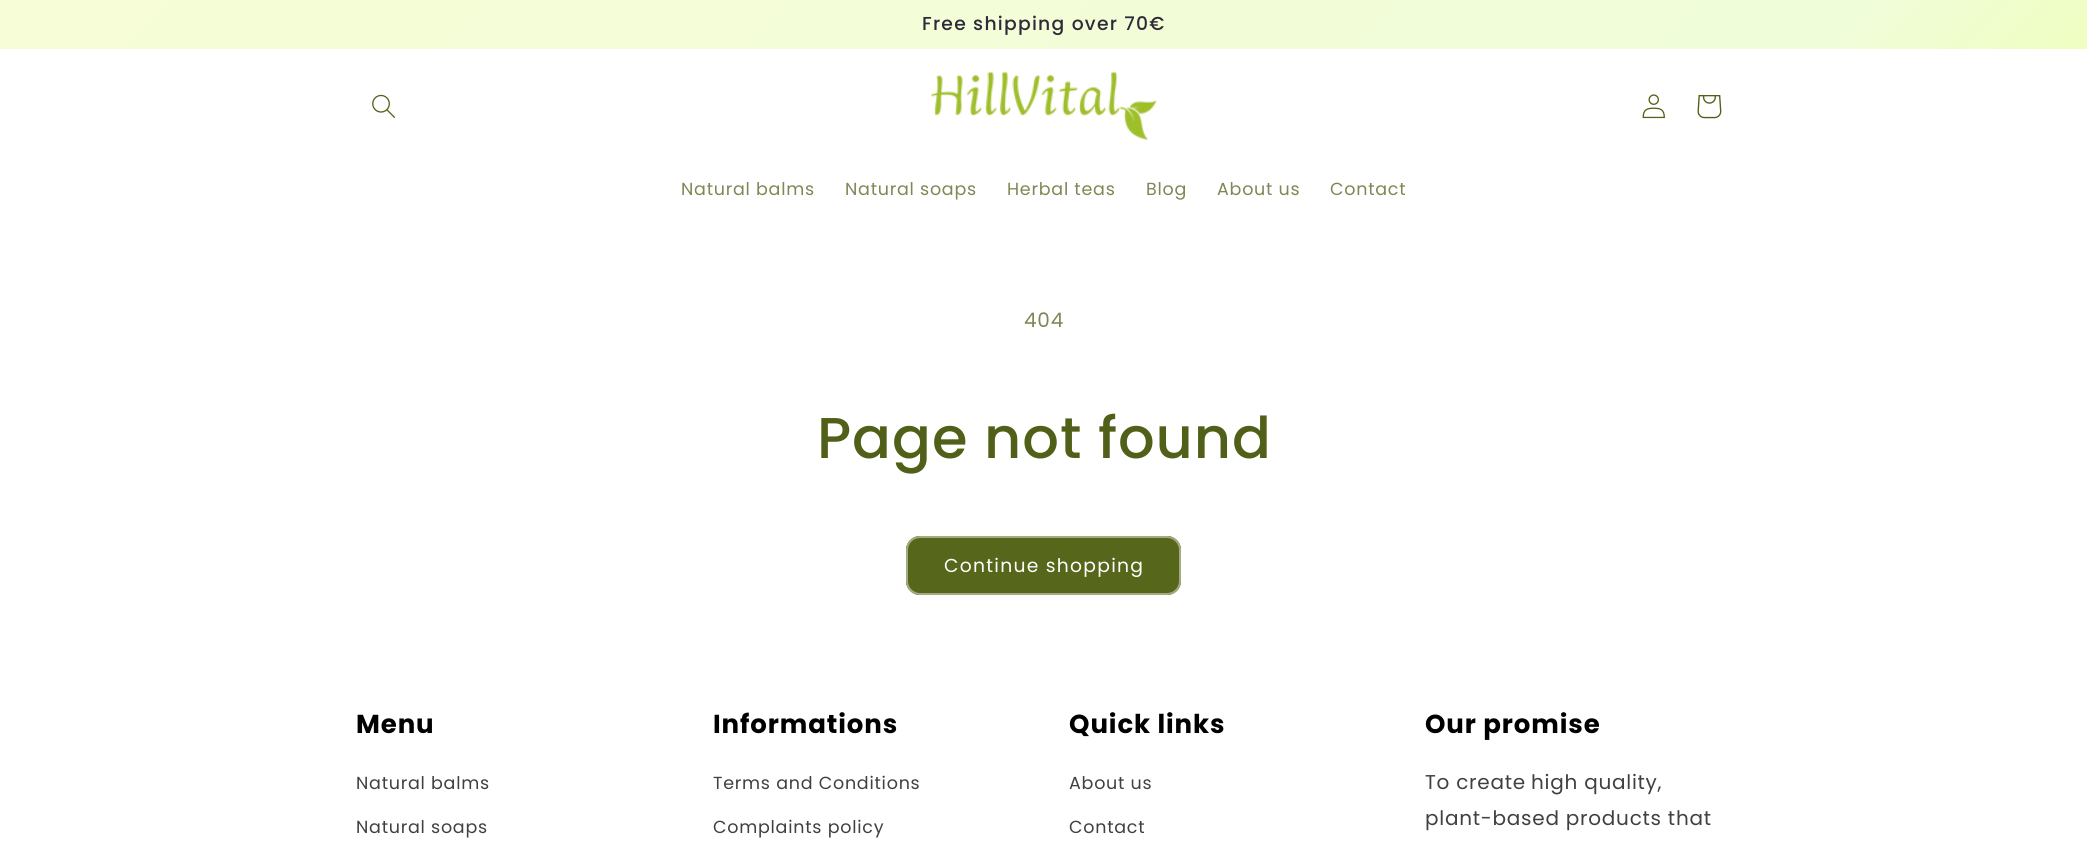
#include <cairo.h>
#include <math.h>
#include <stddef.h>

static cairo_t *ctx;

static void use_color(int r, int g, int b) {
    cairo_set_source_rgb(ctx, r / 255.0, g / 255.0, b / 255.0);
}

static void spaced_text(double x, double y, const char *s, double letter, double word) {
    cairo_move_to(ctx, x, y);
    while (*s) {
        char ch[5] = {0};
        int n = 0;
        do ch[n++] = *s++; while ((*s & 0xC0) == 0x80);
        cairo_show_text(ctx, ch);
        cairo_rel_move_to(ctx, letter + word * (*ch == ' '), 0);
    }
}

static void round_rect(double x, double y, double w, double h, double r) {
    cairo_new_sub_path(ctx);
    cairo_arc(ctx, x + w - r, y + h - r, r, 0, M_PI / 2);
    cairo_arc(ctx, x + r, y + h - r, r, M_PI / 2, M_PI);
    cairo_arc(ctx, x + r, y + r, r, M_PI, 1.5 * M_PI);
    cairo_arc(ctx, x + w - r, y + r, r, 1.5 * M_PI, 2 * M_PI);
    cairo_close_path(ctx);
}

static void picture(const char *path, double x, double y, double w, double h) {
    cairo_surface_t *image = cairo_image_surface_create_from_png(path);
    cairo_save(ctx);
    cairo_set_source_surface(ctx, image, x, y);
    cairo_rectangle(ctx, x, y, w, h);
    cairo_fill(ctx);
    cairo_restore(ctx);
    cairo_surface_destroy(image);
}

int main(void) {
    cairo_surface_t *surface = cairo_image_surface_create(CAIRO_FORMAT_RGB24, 2087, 843);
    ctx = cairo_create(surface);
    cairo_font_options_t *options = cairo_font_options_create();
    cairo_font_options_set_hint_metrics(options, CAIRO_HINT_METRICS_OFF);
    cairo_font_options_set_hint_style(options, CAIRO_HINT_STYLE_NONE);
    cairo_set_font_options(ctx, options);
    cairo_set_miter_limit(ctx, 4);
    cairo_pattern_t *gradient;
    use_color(255, 255, 255);
    cairo_paint(ctx);
    gradient = cairo_pattern_create_linear(1777, 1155, 311, -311);
    cairo_pattern_add_color_stop_rgba(gradient, 0, 1, 0.898, 0.898, 1);
    cairo_pattern_add_color_stop_rgba(gradient, 0.18, 0.929, 1, 0.655, 1);
    cairo_pattern_add_color_stop_rgba(gradient, 0.36, 0.941, 0.992, 0.851, 1);
    cairo_pattern_add_color_stop_rgba(gradient, 1, 0.965, 0.992, 0.843, 1);
    cairo_pattern_add_color_stop_rgba(gradient, 1, 0.843, 1, 0.537, 1);
    cairo_set_source(ctx, gradient);
    cairo_pattern_destroy(gradient);
    cairo_rectangle(ctx, 0, 0, 2087, 49);
    cairo_fill(ctx);
    cairo_select_font_face(ctx, "Poppins Medium", CAIRO_FONT_SLANT_NORMAL, CAIRO_FONT_WEIGHT_NORMAL);
    cairo_set_font_size(ctx, 18.75);
    use_color(46, 42, 57);
    spaced_text(922, 30, "Free shipping over 70€", 1.25, 0);
    picture("img1.png", 372, 94, 23, 24);
    picture("img2.png", 931, 72, 226, 68);
    picture("img3.png", 1642, 94, 23, 25);
    picture("img4.png", 1697, 95, 25, 24);
    cairo_select_font_face(ctx, "Poppins", CAIRO_FONT_SLANT_NORMAL, CAIRO_FONT_WEIGHT_NORMAL);
    cairo_set_font_size(ctx, 17.5);
    use_color(125, 136, 83);
    spaced_text(681, 195, "Natural balms", 0.75, 0);
    spaced_text(845, 195, "Natural soaps", 0.75, 0);
    spaced_text(1007, 195, "Herbal teas", 0.75, 0);
    spaced_text(1146, 195, "Blog", 0.75, 0);
    spaced_text(1217, 195, "About us", 0.75, 0);
    spaced_text(1330, 195, "Contact", 0.75, 0);
    cairo_set_font_size(ctx, 20);
    spaced_text(1024, 327, "404", 0.75, 0);
    cairo_select_font_face(ctx, "Poppins Medium", CAIRO_FONT_SLANT_NORMAL, CAIRO_FONT_WEIGHT_NORMAL);
    cairo_set_font_size(ctx, 57.5);
    use_color(81, 96, 25);
    spaced_text(817, 458, "Page not found", 0.9, 0);
    use_color(86, 102, 26);
    round_rect(906, 536, 275, 59, 14);
    cairo_fill(ctx);
    round_rect(906.5, 536.5, 274, 58, 13.5);
    cairo_set_line_width(ctx, 1);
    cairo_stroke(ctx);
    round_rect(907, 537, 273, 57, 13);
    cairo_set_source_rgba(ctx, 1, 1, 1, 0.45);
    cairo_set_line_width(ctx, 2);
    cairo_stroke(ctx);
    cairo_select_font_face(ctx, "Poppins", CAIRO_FONT_SLANT_NORMAL, CAIRO_FONT_WEIGHT_NORMAL);
    cairo_set_font_size(ctx, 18.75);
    use_color(255, 255, 255);
    spaced_text(944, 572, "Continue shopping", 1.25, 0);
    cairo_select_font_face(ctx, "Poppins", CAIRO_FONT_SLANT_NORMAL, CAIRO_FONT_WEIGHT_BOLD);
    cairo_set_font_size(ctx, 26);
    use_color(0, 0, 0);
    spaced_text(356, 733, "Menu", 0.9, 0);
    cairo_select_font_face(ctx, "Poppins", CAIRO_FONT_SLANT_NORMAL, CAIRO_FONT_WEIGHT_NORMAL);
    cairo_set_font_size(ctx, 17.5);
    use_color(64, 64, 64);
    spaced_text(356, 789, "Natural balms", 0.75, 0);
    spaced_text(356, 833, "Natural soaps", 0.75, 0);
    cairo_select_font_face(ctx, "Poppins", CAIRO_FONT_SLANT_NORMAL, CAIRO_FONT_WEIGHT_BOLD);
    cairo_set_font_size(ctx, 26);
    use_color(0, 0, 0);
    spaced_text(713, 733, "Informations", 0.9, 0);
    cairo_select_font_face(ctx, "Poppins", CAIRO_FONT_SLANT_NORMAL, CAIRO_FONT_WEIGHT_NORMAL);
    cairo_set_font_size(ctx, 17.5);
    use_color(64, 64, 64);
    spaced_text(713, 789, "Terms and Conditions", 0.75, 0);
    spaced_text(713, 833, "Complaints policy", 0.75, 0);
    cairo_select_font_face(ctx, "Poppins", CAIRO_FONT_SLANT_NORMAL, CAIRO_FONT_WEIGHT_BOLD);
    cairo_set_font_size(ctx, 26);
    use_color(0, 0, 0);
    spaced_text(1069, 733, "Quick links", 0.9, 0);
    cairo_select_font_face(ctx, "Poppins", CAIRO_FONT_SLANT_NORMAL, CAIRO_FONT_WEIGHT_NORMAL);
    cairo_set_font_size(ctx, 17.5);
    use_color(64, 64, 64);
    spaced_text(1069, 789, "About us", 0.75, 0);
    spaced_text(1069, 833, "Contact", 0.75, 0);
    cairo_select_font_face(ctx, "Poppins", CAIRO_FONT_SLANT_NORMAL, CAIRO_FONT_WEIGHT_BOLD);
    cairo_set_font_size(ctx, 26);
    use_color(0, 0, 0);
    spaced_text(1425, 733, "Our promise", 0.9, 0);
    cairo_select_font_face(ctx, "Poppins", CAIRO_FONT_SLANT_NORMAL, CAIRO_FONT_WEIGHT_NORMAL);
    cairo_set_font_size(ctx, 20);
    use_color(64, 64, 64);
    spaced_text(1425, 789, "To create", 0.75, 0);
    spaced_text(1531, 789, "high quality,", 0.75, 0);
    spaced_text(1425, 825, "plant-based products that", 0.75, 0);
    cairo_surface_write_to_png(surface, "result.png");
    cairo_font_options_destroy(options);
    cairo_destroy(ctx);
    cairo_surface_destroy(surface);
    return 0;
}
